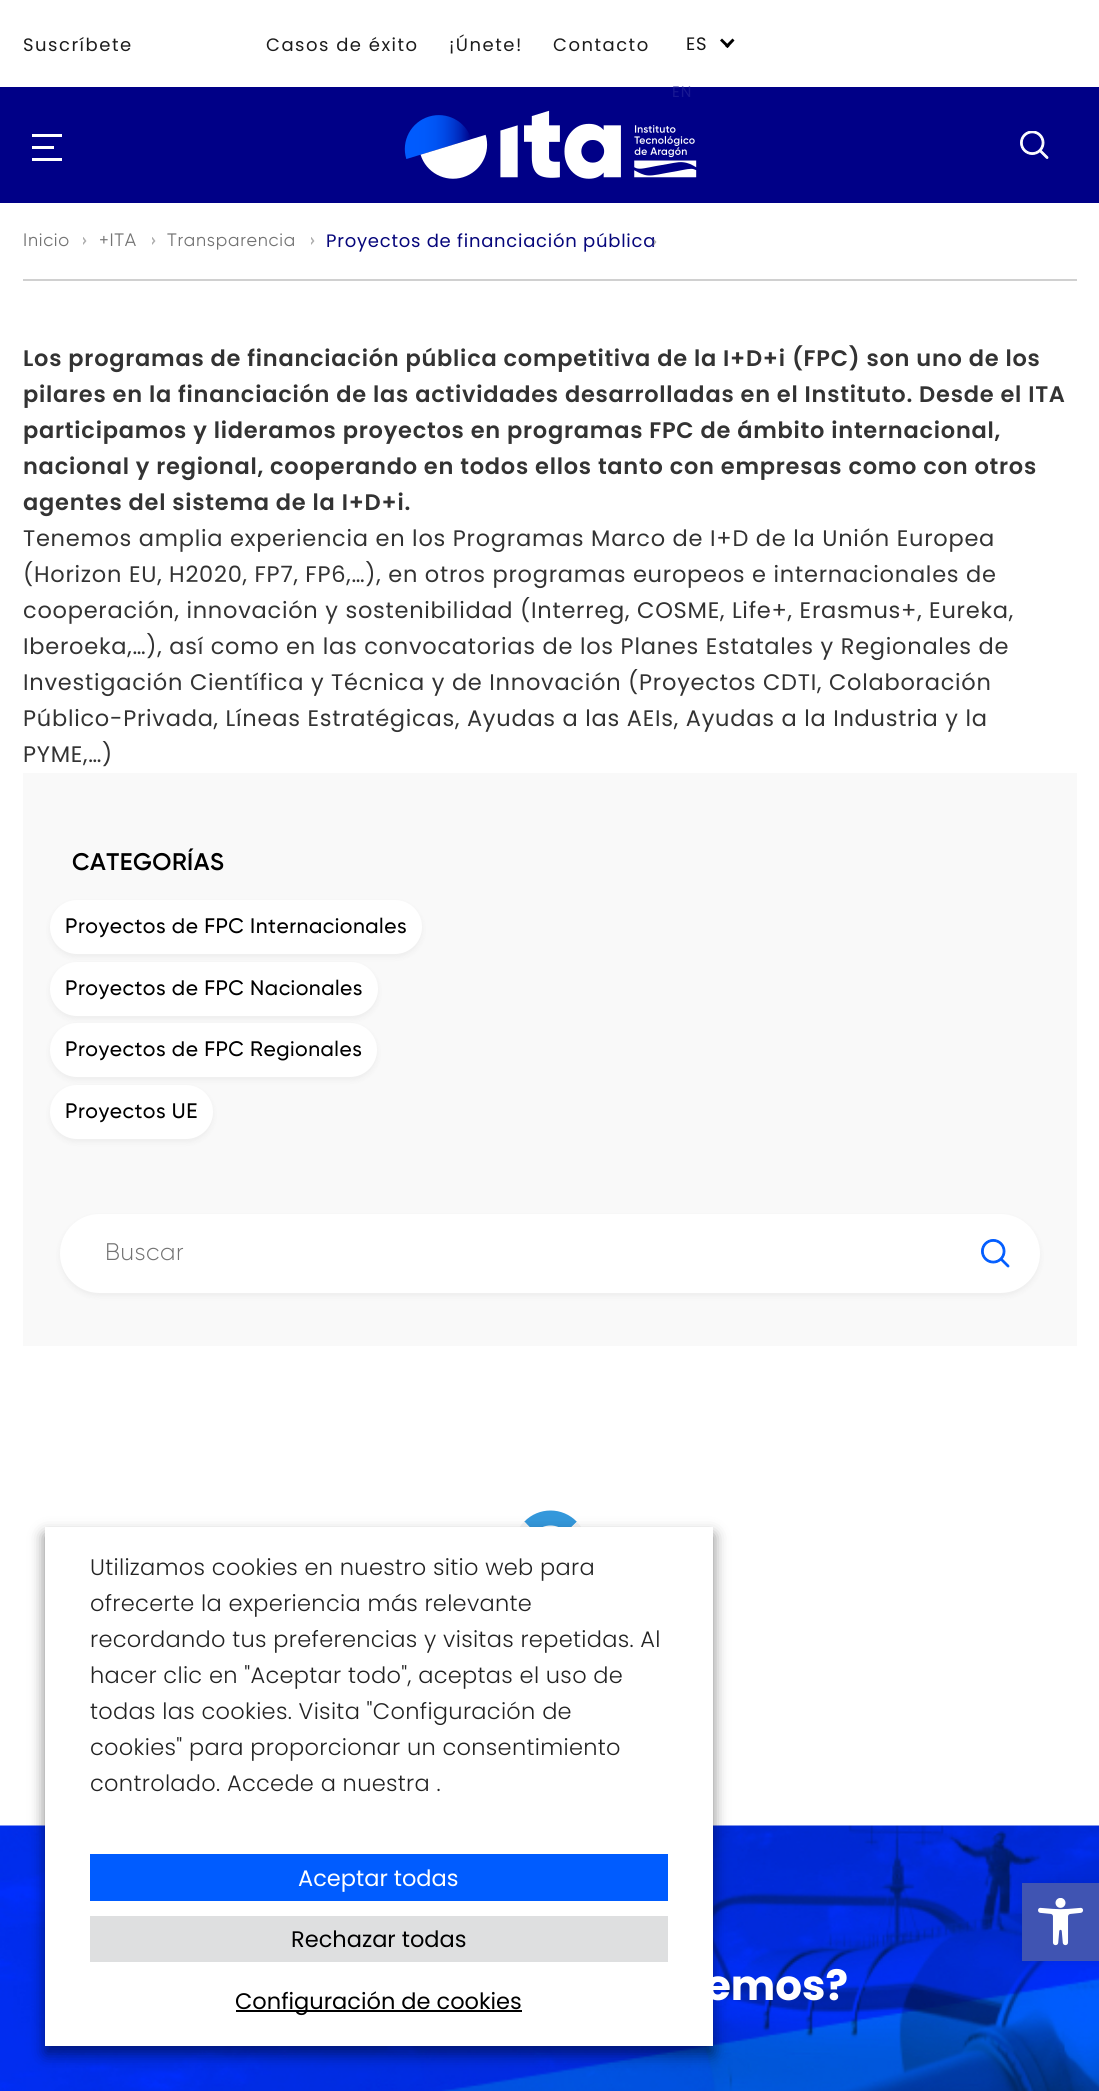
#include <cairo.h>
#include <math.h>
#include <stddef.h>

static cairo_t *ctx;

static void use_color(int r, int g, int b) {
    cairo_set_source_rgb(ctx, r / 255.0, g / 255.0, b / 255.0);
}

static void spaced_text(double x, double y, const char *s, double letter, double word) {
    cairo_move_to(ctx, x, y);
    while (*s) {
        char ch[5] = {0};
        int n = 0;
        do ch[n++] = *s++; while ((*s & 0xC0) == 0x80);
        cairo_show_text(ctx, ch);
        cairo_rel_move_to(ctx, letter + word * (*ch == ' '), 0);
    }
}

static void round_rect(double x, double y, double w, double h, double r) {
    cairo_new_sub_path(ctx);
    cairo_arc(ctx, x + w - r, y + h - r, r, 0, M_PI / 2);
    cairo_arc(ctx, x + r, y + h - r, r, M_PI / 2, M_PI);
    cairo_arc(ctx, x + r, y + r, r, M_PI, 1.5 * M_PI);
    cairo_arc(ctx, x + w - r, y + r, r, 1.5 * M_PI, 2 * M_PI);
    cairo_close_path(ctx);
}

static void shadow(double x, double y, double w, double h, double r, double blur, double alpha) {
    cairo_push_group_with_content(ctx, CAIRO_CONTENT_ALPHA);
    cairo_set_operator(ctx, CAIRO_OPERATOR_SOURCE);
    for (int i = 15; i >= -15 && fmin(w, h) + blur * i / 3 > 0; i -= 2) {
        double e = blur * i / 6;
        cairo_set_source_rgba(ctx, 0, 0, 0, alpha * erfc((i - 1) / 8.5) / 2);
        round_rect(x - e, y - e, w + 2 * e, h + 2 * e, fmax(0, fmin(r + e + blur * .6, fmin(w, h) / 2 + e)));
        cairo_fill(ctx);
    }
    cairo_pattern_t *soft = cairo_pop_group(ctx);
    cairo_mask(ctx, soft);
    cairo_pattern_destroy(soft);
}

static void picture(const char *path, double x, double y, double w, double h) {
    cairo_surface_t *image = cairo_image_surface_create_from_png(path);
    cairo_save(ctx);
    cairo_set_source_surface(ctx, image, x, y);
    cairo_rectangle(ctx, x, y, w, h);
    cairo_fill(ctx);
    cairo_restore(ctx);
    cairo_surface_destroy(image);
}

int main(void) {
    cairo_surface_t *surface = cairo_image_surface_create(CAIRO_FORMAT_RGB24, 1099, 2091);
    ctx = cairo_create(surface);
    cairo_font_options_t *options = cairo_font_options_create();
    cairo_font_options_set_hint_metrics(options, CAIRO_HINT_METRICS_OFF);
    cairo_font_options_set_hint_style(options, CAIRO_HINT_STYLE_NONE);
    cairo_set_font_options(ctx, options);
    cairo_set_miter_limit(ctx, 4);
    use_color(255, 255, 255);
    cairo_paint(ctx);
    cairo_select_font_face(ctx, "Poppins", CAIRO_FONT_SLANT_NORMAL, CAIRO_FONT_WEIGHT_NORMAL);
    cairo_set_font_size(ctx, 18);
    use_color(28, 28, 28);
    spaced_text(23, 51, "Suscríbete", 1.5, 0);
    spaced_text(266, 51, "Casos de éxito", 1.5, 0);
    spaced_text(449, 51, "¡Únete!", 1.5, 0);
    spaced_text(553, 51, "Contacto", 1.5, 0);
    use_color(21, 21, 21);
    spaced_text(686, 50, "ES", 0.75, 0);
    use_color(0, 0, 0);
    cairo_new_path(ctx);
    cairo_move_to(ctx, 732.5, 38.5);
    cairo_line_to(ctx, 734.5, 40.5);
    cairo_line_to(ctx, 727.5, 48);
    cairo_line_to(ctx, 725, 46);
    cairo_close_path(ctx);
    cairo_fill(ctx);
    cairo_new_path(ctx);
    cairo_move_to(ctx, 722, 38.5);
    cairo_line_to(ctx, 729.5, 46);
    cairo_line_to(ctx, 727.5, 48);
    cairo_line_to(ctx, 720, 40.5);
    cairo_close_path(ctx);
    cairo_fill(ctx);
    use_color(0, 0, 135);
    cairo_rectangle(ctx, 0, 87, 1099, 116);
    cairo_fill(ctx);
    cairo_set_font_size(ctx, 15);
    use_color(24, 24, 146);
    spaced_text(672, 97, "EN", 1, 0);
    use_color(255, 255, 255);
    cairo_rectangle(ctx, 32, 134, 30, 3);
    cairo_fill(ctx);
    cairo_rectangle(ctx, 32, 146, 22, 3);
    cairo_fill(ctx);
    cairo_rectangle(ctx, 32, 158, 30, 3);
    cairo_fill(ctx);
    picture("img1.png", 404, 110, 293, 69);
    picture("img2.png", 1020, 131, 29, 28);
    use_color(208, 208, 208);
    cairo_rectangle(ctx, 23, 279, 1054, 2);
    cairo_fill(ctx);
    cairo_select_font_face(ctx, "Gilroy", CAIRO_FONT_SLANT_NORMAL, CAIRO_FONT_WEIGHT_NORMAL);
    cairo_set_font_size(ctx, 18);
    use_color(115, 115, 115);
    spaced_text(23, 246, "Inicio", 0.75, 0);
    cairo_save(ctx);
    cairo_rectangle(ctx, 83, 237, 5, 9);
    cairo_clip(ctx);
    cairo_new_path(ctx);
    cairo_move_to(ctx, 82.5, 237);
    cairo_line_to(ctx, 85.5, 241);
    cairo_line_to(ctx, 82.5, 244.5);
    use_color(172, 172, 172);
    cairo_set_line_width(ctx, 1.5);
    cairo_stroke(ctx);
    cairo_restore(ctx);
    spaced_text(99, 246, "+ITA", 0.75, 0);
    cairo_save(ctx);
    cairo_rectangle(ctx, 152, 237, 5, 9);
    cairo_clip(ctx);
    cairo_new_path(ctx);
    cairo_move_to(ctx, 151.5, 237);
    cairo_line_to(ctx, 154.5, 241);
    cairo_line_to(ctx, 151.5, 244.5);
    use_color(172, 172, 172);
    cairo_set_line_width(ctx, 1.5);
    cairo_stroke(ctx);
    cairo_restore(ctx);
    spaced_text(167, 246, "Transparencia", 0.75, 0);
    cairo_save(ctx);
    cairo_rectangle(ctx, 311, 237, 5, 9);
    cairo_clip(ctx);
    cairo_new_path(ctx);
    cairo_move_to(ctx, 310.5, 237);
    cairo_line_to(ctx, 313.5, 241);
    cairo_line_to(ctx, 310.5, 244.5);
    use_color(172, 172, 172);
    cairo_set_line_width(ctx, 1.5);
    cairo_stroke(ctx);
    cairo_restore(ctx);
    cairo_select_font_face(ctx, "Poppins", CAIRO_FONT_SLANT_NORMAL, CAIRO_FONT_WEIGHT_NORMAL);
    use_color(6, 6, 123);
    spaced_text(326, 247, "Proyectos de financiación pública", 0.75, 0);
    cairo_save(ctx);
    cairo_rectangle(ctx, 653, 239, 5, 9);
    cairo_clip(ctx);
    cairo_new_path(ctx);
    cairo_move_to(ctx, 652.5, 238.5);
    cairo_line_to(ctx, 655.5, 242);
    cairo_line_to(ctx, 652.5, 246);
    cairo_set_source_rgba(ctx, 0.463, 0.463, 0.463, 0.61);
    cairo_set_line_width(ctx, 1.5);
    cairo_stroke(ctx);
    cairo_restore(ctx);
    cairo_select_font_face(ctx, "Poppins SemiBold", CAIRO_FONT_SLANT_NORMAL, CAIRO_FONT_WEIGHT_NORMAL);
    cairo_set_font_size(ctx, 22.5);
    use_color(51, 51, 51);
    spaced_text(23, 366, "Los programas de financiación pública competitiva de la I+D+i (FPC) son uno de los", 0.75, 0);
    spaced_text(23, 402, "pilares en la financiación de las actividades desarrolladas en el Instituto. Desde el ITA", 0.75, 0);
    spaced_text(23, 438, "participamos y lideramos proyectos en programas FPC de ámbito internacional,", 0.75, 0);
    spaced_text(23, 474, "nacional y regional, cooperando en todos ellos tanto con empresas como con otros", 0.75, 0);
    spaced_text(23, 510, "agentes del sistema de la I+D+i.", 0.75, 0);
    cairo_select_font_face(ctx, "Poppins", CAIRO_FONT_SLANT_NORMAL, CAIRO_FONT_WEIGHT_NORMAL);
    spaced_text(23, 546, "Tenemos amplia experiencia en los Programas Marco de I+D de la Unión Europea", 0.75, 0);
    spaced_text(23, 582, "(Horizon EU, H2020, FP7, FP6,…), en otros programas europeos e internacionales de", 0.75, 0);
    spaced_text(23, 618, "cooperación, innovación y sostenibilidad (Interreg, COSME, Life+, Erasmus+, Eureka,", 0.75, 0);
    spaced_text(23, 654, "Iberoeka,…), así como en las convocatorias de los Planes Estatales y Regionales de", 0.75, 0);
    spaced_text(23, 690, "Investigación Científica y Técnica y de Innovación (Proyectos CDTI, Colaboración", 0.75, 0);
    spaced_text(23, 726, "Público-Privada, Líneas Estratégicas, Ayudas a las AEIs, Ayudas a la Industria y la", 0.75, 0);
    spaced_text(23, 762, "PYME,…)", 0.75, 0);
    use_color(249, 249, 249);
    cairo_rectangle(ctx, 23, 773, 1054, 573);
    cairo_fill(ctx);
    cairo_select_font_face(ctx, "Gilroy SemiBold", CAIRO_FONT_SLANT_NORMAL, CAIRO_FONT_WEIGHT_NORMAL);
    cairo_set_font_size(ctx, 24);
    use_color(0, 0, 0);
    spaced_text(72, 870, "CATEGORÍAS", 0.5, 0);
    use_color(0, 0, 0);
    shadow(50, 903, 372, 54, 27, 3, 0.05);
    use_color(255, 255, 255);
    round_rect(50, 900, 372, 54, 27);
    cairo_fill(ctx);
    cairo_select_font_face(ctx, "Gilroy Medium", CAIRO_FONT_SLANT_NORMAL, CAIRO_FONT_WEIGHT_NORMAL);
    cairo_set_font_size(ctx, 21);
    use_color(0, 0, 0);
    spaced_text(65, 933, "Proyectos de FPC Internacionales", 0.5, 0);
    use_color(0, 0, 0);
    shadow(50, 965, 328, 54, 27, 3, 0.05);
    use_color(255, 255, 255);
    round_rect(50, 962, 328, 54, 27);
    cairo_fill(ctx);
    use_color(0, 0, 0);
    spaced_text(65, 995, "Proyectos de FPC Nacionales", 0.5, 0);
    use_color(0, 0, 0);
    shadow(50, 1026, 327, 54, 27, 3, 0.05);
    use_color(255, 255, 255);
    round_rect(50, 1023, 327, 54, 27);
    cairo_fill(ctx);
    use_color(0, 0, 0);
    spaced_text(65, 1056, "Proyectos de FPC Regionales", 0.5, 0);
    use_color(0, 0, 0);
    shadow(50, 1088, 163, 54, 27, 3, 0.05);
    use_color(255, 255, 255);
    round_rect(50, 1085, 163, 54, 27);
    cairo_fill(ctx);
    use_color(0, 0, 0);
    spaced_text(65, 1118, "Proyectos UE", 0.5, 0);
    use_color(0, 0, 0);
    shadow(60, 1217, 980, 79, 39.5, 3, 0.05);
    use_color(255, 255, 255);
    round_rect(60, 1214, 980, 79, 39.5);
    cairo_fill(ctx);
    cairo_select_font_face(ctx, "Gilroy Light", CAIRO_FONT_SLANT_NORMAL, CAIRO_FONT_WEIGHT_NORMAL);
    cairo_set_font_size(ctx, 24);
    use_color(115, 115, 115);
    spaced_text(105, 1260, "Buscar", 0.5, 0);
    picture("img3.png", 981, 1239, 29, 29);
    cairo_new_path(ctx);
    cairo_move_to(ctx, 529.5, 1527);
    cairo_curve_to(ctx, 541, 1515, 560, 1515, 571.5, 1527);
    use_color(52, 152, 219);
    cairo_set_line_width(ctx, 15);
    cairo_stroke(ctx);
    cairo_new_path(ctx);
    cairo_move_to(ctx, 571.5, 1527);
    cairo_curve_to(ctx, 578.5, 1534, 582, 1544, 580, 1554);
    cairo_curve_to(ctx, 573, 1589, 520.5, 1584, 520.5, 1548);
    cairo_curve_to(ctx, 520.5, 1540, 523.5, 1532.5, 529.5, 1527);
    use_color(243, 243, 243);
    cairo_stroke(ctx);
    picture("img4.png", 0, 1825, 1099, 266);
    use_color(0, 0, 0);
    shadow(45, 1535, 668, 519, 0, 7.5, 0.5);
    use_color(255, 255, 255);
    cairo_rectangle(ctx, 45, 1527, 668, 519);
    cairo_fill(ctx);
    cairo_select_font_face(ctx, "Poppins Light", CAIRO_FONT_SLANT_NORMAL, CAIRO_FONT_WEIGHT_NORMAL);
    cairo_set_font_size(ctx, 22.5);
    use_color(35, 35, 35);
    spaced_text(90, 1575, "Utilizamos cookies en nuestro sitio web para", 0.3, 0);
    spaced_text(90, 1611, "ofrecerte la experiencia más relevante", 0.3, 0);
    spaced_text(90, 1647, "recordando tus preferencias y visitas repetidas. Al", 0.3, 0);
    spaced_text(90, 1683, "hacer clic en \"Aceptar todo\", aceptas el uso de", 0.3, 0);
    spaced_text(90, 1719, "todas las cookies. Visita \"Configuración de", 0.3, 0);
    spaced_text(90, 1755, "cookies\" para proporcionar un consentimiento", 0.3, 0);
    spaced_text(90, 1791, "controlado. Accede a nuestra .", 0.3, 0);
    use_color(0, 92, 255);
    cairo_rectangle(ctx, 90, 1854, 578, 47);
    cairo_fill(ctx);
    cairo_select_font_face(ctx, "Poppins", CAIRO_FONT_SLANT_NORMAL, CAIRO_FONT_WEIGHT_NORMAL);
    use_color(255, 255, 255);
    cairo_move_to(ctx, 298, 1886);
    cairo_show_text(ctx, "Aceptar todas");
    use_color(222, 223, 224);
    cairo_rectangle(ctx, 90, 1916, 578, 46);
    cairo_fill(ctx);
    use_color(0, 0, 0);
    cairo_move_to(ctx, 291, 1947);
    cairo_show_text(ctx, "Rechazar todas");
    cairo_rectangle(ctx, 236, 2010, 286, 2);
    cairo_fill(ctx);
    cairo_move_to(ctx, 235, 2009);
    cairo_show_text(ctx, "Configuración de cookies");
    cairo_select_font_face(ctx, "Poppins", CAIRO_FONT_SLANT_NORMAL, CAIRO_FONT_WEIGHT_BOLD);
    cairo_set_font_size(ctx, 42);
    use_color(255, 255, 255);
    cairo_move_to(ctx, 705, 2000);
    cairo_show_text(ctx, "emos?");
    use_color(0, 0, 0);
    shadow(1022, 1883, 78, 78, 0, 7.5, 0.1);
    use_color(64, 84, 178);
    cairo_rectangle(ctx, 1022, 1883, 77, 78);
    cairo_fill(ctx);
    picture("img5.png", 1038, 1898, 46, 48);
    cairo_surface_write_to_png(surface, "result.png");
    cairo_font_options_destroy(options);
    cairo_destroy(ctx);
    cairo_surface_destroy(surface);
    return 0;
}
